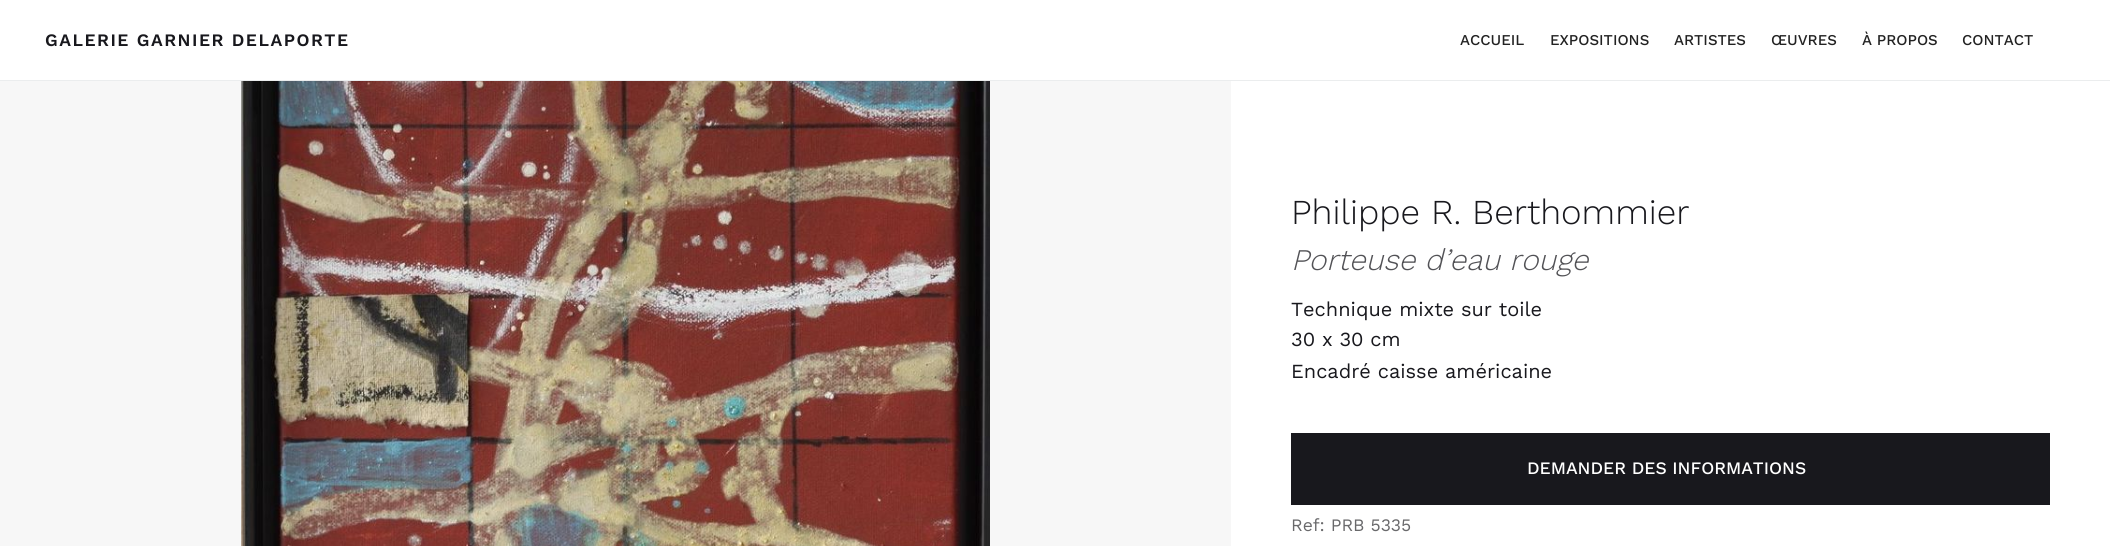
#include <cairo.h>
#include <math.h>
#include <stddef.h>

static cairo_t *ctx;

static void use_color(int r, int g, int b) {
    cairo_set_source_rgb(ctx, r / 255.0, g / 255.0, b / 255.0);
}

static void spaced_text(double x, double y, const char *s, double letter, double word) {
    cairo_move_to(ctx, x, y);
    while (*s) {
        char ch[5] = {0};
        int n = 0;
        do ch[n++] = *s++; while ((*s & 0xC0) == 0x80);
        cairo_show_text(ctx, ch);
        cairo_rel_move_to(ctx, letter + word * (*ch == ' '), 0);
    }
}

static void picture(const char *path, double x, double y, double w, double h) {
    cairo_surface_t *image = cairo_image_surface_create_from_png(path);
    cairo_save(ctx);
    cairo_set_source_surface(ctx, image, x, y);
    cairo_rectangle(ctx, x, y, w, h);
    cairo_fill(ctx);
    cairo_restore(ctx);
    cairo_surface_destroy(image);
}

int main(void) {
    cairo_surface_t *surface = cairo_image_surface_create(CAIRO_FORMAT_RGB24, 2110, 546);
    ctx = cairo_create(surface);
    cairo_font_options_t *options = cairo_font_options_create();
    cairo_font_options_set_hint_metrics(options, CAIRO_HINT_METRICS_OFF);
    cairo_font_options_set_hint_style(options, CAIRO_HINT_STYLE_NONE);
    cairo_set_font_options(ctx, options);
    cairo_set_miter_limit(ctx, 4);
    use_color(255, 255, 255);
    cairo_paint(ctx);
    use_color(235, 237, 238);
    cairo_rectangle(ctx, 0, 80, 2110, 1);
    cairo_fill(ctx);
    cairo_select_font_face(ctx, "Work Sans SemiBold", CAIRO_FONT_SLANT_NORMAL, CAIRO_FONT_WEIGHT_NORMAL);
    cairo_set_font_size(ctx, 17.5);
    use_color(24, 24, 29);
    spaced_text(45, 46, "GALERIE GARNIER DELAPORTE", 1.5, 0);
    cairo_select_font_face(ctx, "Work Sans Medium", CAIRO_FONT_SLANT_NORMAL, CAIRO_FONT_WEIGHT_NORMAL);
    cairo_set_font_size(ctx, 15);
    use_color(34, 34, 34);
    cairo_move_to(ctx, 1460, 45);
    cairo_show_text(ctx, "ACCUEIL");
    cairo_move_to(ctx, 1550, 45);
    cairo_show_text(ctx, "EXPOSITIONS");
    cairo_move_to(ctx, 1674, 45);
    cairo_show_text(ctx, "ARTISTES");
    cairo_move_to(ctx, 1771, 45);
    cairo_show_text(ctx, "ŒUVRES");
    cairo_move_to(ctx, 1862, 45);
    cairo_show_text(ctx, "À PROPOS");
    cairo_move_to(ctx, 1962, 45);
    cairo_show_text(ctx, "CONTACT");
    use_color(247, 247, 247);
    cairo_rectangle(ctx, 0, 81, 1231, 465);
    cairo_fill(ctx);
    picture("img1.png", 241, 81, 749, 465);
    cairo_select_font_face(ctx, "Work Sans Light", CAIRO_FONT_SLANT_NORMAL, CAIRO_FONT_WEIGHT_NORMAL);
    cairo_set_font_size(ctx, 35);
    use_color(24, 24, 29);
    cairo_move_to(ctx, 1291, 224);
    cairo_show_text(ctx, "Philippe R. Berthommier");
    cairo_select_font_face(ctx, "Work Sans Light", CAIRO_FONT_SLANT_ITALIC, CAIRO_FONT_WEIGHT_NORMAL);
    cairo_set_font_size(ctx, 30);
    use_color(82, 82, 86);
    cairo_move_to(ctx, 1291, 270);
    cairo_show_text(ctx, "Porteuse d’eau rouge");
    cairo_select_font_face(ctx, "Work Sans", CAIRO_FONT_SLANT_NORMAL, CAIRO_FONT_WEIGHT_NORMAL);
    cairo_set_font_size(ctx, 20);
    use_color(24, 24, 29);
    cairo_move_to(ctx, 1291, 316);
    cairo_show_text(ctx, "Technique mixte sur toile");
    cairo_move_to(ctx, 1291, 346);
    cairo_show_text(ctx, "30 x 30 cm");
    cairo_move_to(ctx, 1291, 378);
    cairo_show_text(ctx, "Encadré caisse américaine");
    cairo_rectangle(ctx, 1291, 433, 759, 72);
    cairo_fill(ctx);
    cairo_select_font_face(ctx, "Work Sans Medium", CAIRO_FONT_SLANT_NORMAL, CAIRO_FONT_WEIGHT_NORMAL);
    cairo_set_font_size(ctx, 17.5);
    use_color(255, 255, 255);
    cairo_move_to(ctx, 1527, 474);
    cairo_show_text(ctx, "DEMANDER DES INFORMATIONS");
    cairo_select_font_face(ctx, "Work Sans", CAIRO_FONT_SLANT_NORMAL, CAIRO_FONT_WEIGHT_NORMAL);
    use_color(105, 105, 107);
    cairo_move_to(ctx, 1291, 531);
    cairo_show_text(ctx, "Ref: PRB 5335");
    cairo_surface_write_to_png(surface, "result.png");
    cairo_font_options_destroy(options);
    cairo_destroy(ctx);
    cairo_surface_destroy(surface);
    return 0;
}
